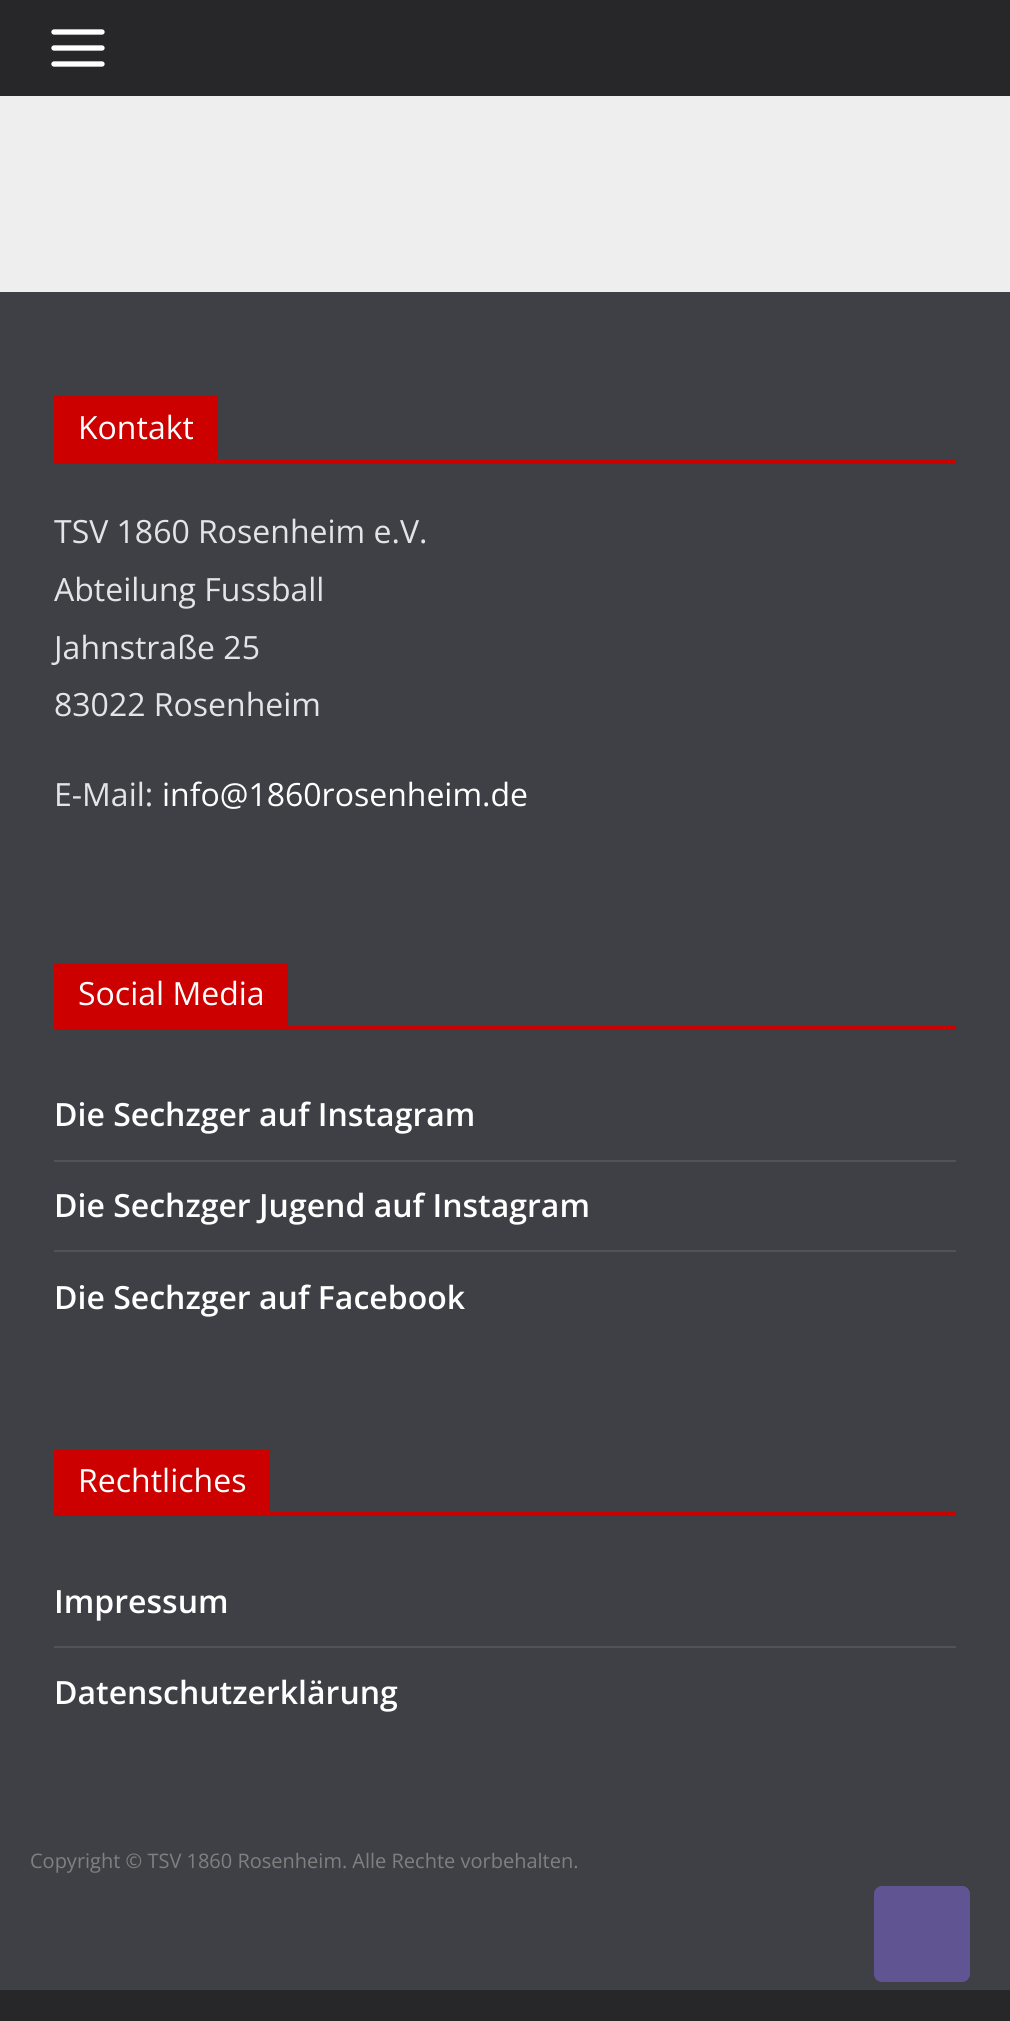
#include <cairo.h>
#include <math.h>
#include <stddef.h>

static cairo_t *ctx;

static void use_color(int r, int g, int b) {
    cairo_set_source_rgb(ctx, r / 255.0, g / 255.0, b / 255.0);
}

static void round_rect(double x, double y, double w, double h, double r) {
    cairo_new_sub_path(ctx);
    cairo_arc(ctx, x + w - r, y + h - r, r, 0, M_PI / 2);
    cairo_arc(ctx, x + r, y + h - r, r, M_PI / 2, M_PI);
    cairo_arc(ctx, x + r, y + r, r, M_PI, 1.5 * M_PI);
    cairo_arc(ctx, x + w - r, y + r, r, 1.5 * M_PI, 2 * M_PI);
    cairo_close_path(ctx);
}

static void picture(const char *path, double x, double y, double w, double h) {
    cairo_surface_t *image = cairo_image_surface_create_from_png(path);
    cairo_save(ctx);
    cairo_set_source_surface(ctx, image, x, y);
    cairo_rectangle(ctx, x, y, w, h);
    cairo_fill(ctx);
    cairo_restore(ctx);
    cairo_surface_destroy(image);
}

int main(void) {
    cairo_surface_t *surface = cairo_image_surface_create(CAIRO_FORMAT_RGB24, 1010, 2021);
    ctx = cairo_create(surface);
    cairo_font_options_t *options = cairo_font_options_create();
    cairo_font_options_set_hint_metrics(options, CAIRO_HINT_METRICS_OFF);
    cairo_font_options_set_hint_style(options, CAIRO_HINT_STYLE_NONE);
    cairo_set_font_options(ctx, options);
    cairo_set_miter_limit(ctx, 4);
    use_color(39, 39, 42);
    cairo_paint(ctx);
    picture("img1.png", 51, 29, 54, 38);
    use_color(238, 238, 238);
    cairo_rectangle(ctx, 0, 96, 1010, 196);
    cairo_fill(ctx);
    use_color(63, 63, 70);
    cairo_rectangle(ctx, 0, 292, 1010, 1698);
    cairo_fill(ctx);
    use_color(205, 0, 0);
    cairo_rectangle(ctx, 54, 460, 902, 4);
    cairo_fill(ctx);
    cairo_rectangle(ctx, 54, 396, 164, 64);
    cairo_fill(ctx);
    cairo_select_font_face(ctx, "Open Sans", CAIRO_FONT_SLANT_NORMAL, CAIRO_FONT_WEIGHT_NORMAL);
    cairo_set_font_size(ctx, 32);
    use_color(255, 255, 255);
    cairo_move_to(ctx, 78, 439);
    cairo_show_text(ctx, "Kontakt");
    use_color(228, 228, 231);
    cairo_move_to(ctx, 54, 543);
    cairo_show_text(ctx, "TSV 1860 Rosenheim e.V.");
    cairo_move_to(ctx, 54, 601);
    cairo_show_text(ctx, "Abteilung Fussball");
    cairo_move_to(ctx, 54, 659);
    cairo_show_text(ctx, "Jahnstraße 25");
    cairo_move_to(ctx, 54, 716);
    cairo_show_text(ctx, "83022 Rosenheim");
    cairo_move_to(ctx, 54, 806);
    cairo_show_text(ctx, "E-Mail:");
    use_color(255, 255, 255);
    cairo_move_to(ctx, 162, 806);
    cairo_show_text(ctx, "info@1860rosenheim.de");
    use_color(205, 0, 0);
    cairo_rectangle(ctx, 54, 1026, 902, 4);
    cairo_fill(ctx);
    cairo_rectangle(ctx, 54, 964, 234, 62);
    cairo_fill(ctx);
    use_color(255, 255, 255);
    cairo_move_to(ctx, 78, 1005);
    cairo_show_text(ctx, "Social Media");
    use_color(82, 82, 91);
    cairo_rectangle(ctx, 54, 1160, 902, 2);
    cairo_fill(ctx);
    cairo_select_font_face(ctx, "Open Sans SemiBold", CAIRO_FONT_SLANT_NORMAL, CAIRO_FONT_WEIGHT_NORMAL);
    use_color(255, 255, 255);
    cairo_move_to(ctx, 54, 1126);
    cairo_show_text(ctx, "Die Sechzger auf Instagram");
    use_color(82, 82, 91);
    cairo_rectangle(ctx, 54, 1250, 902, 2);
    cairo_fill(ctx);
    use_color(255, 255, 255);
    cairo_move_to(ctx, 54, 1217);
    cairo_show_text(ctx, "Die Sechzger Jugend auf Instagram");
    cairo_move_to(ctx, 54, 1309);
    cairo_show_text(ctx, "Die Sechzger auf Facebook");
    use_color(205, 0, 0);
    cairo_rectangle(ctx, 54, 1512, 902, 4);
    cairo_fill(ctx);
    cairo_rectangle(ctx, 54, 1450, 216, 62);
    cairo_fill(ctx);
    cairo_select_font_face(ctx, "Open Sans", CAIRO_FONT_SLANT_NORMAL, CAIRO_FONT_WEIGHT_NORMAL);
    use_color(255, 255, 255);
    cairo_move_to(ctx, 78, 1492);
    cairo_show_text(ctx, "Rechtliches");
    use_color(82, 82, 91);
    cairo_rectangle(ctx, 54, 1646, 902, 2);
    cairo_fill(ctx);
    cairo_select_font_face(ctx, "Open Sans SemiBold", CAIRO_FONT_SLANT_NORMAL, CAIRO_FONT_WEIGHT_NORMAL);
    use_color(255, 255, 255);
    cairo_move_to(ctx, 54, 1613);
    cairo_show_text(ctx, "Impressum");
    cairo_move_to(ctx, 54, 1704);
    cairo_show_text(ctx, "Datenschutzerklärung");
    cairo_select_font_face(ctx, "Open Sans", CAIRO_FONT_SLANT_NORMAL, CAIRO_FONT_WEIGHT_NORMAL);
    cairo_set_font_size(ctx, 20);
    use_color(128, 128, 128);
    cairo_move_to(ctx, 30, 1868);
    cairo_show_text(ctx, "Copyright © TSV 1860 Rosenheim. Alle Rechte vorbehalten.");
    use_color(97, 84, 147);
    round_rect(874, 1886, 96, 96, 8);
    cairo_fill(ctx);
    cairo_surface_write_to_png(surface, "result.png");
    cairo_font_options_destroy(options);
    cairo_destroy(ctx);
    cairo_surface_destroy(surface);
    return 0;
}
